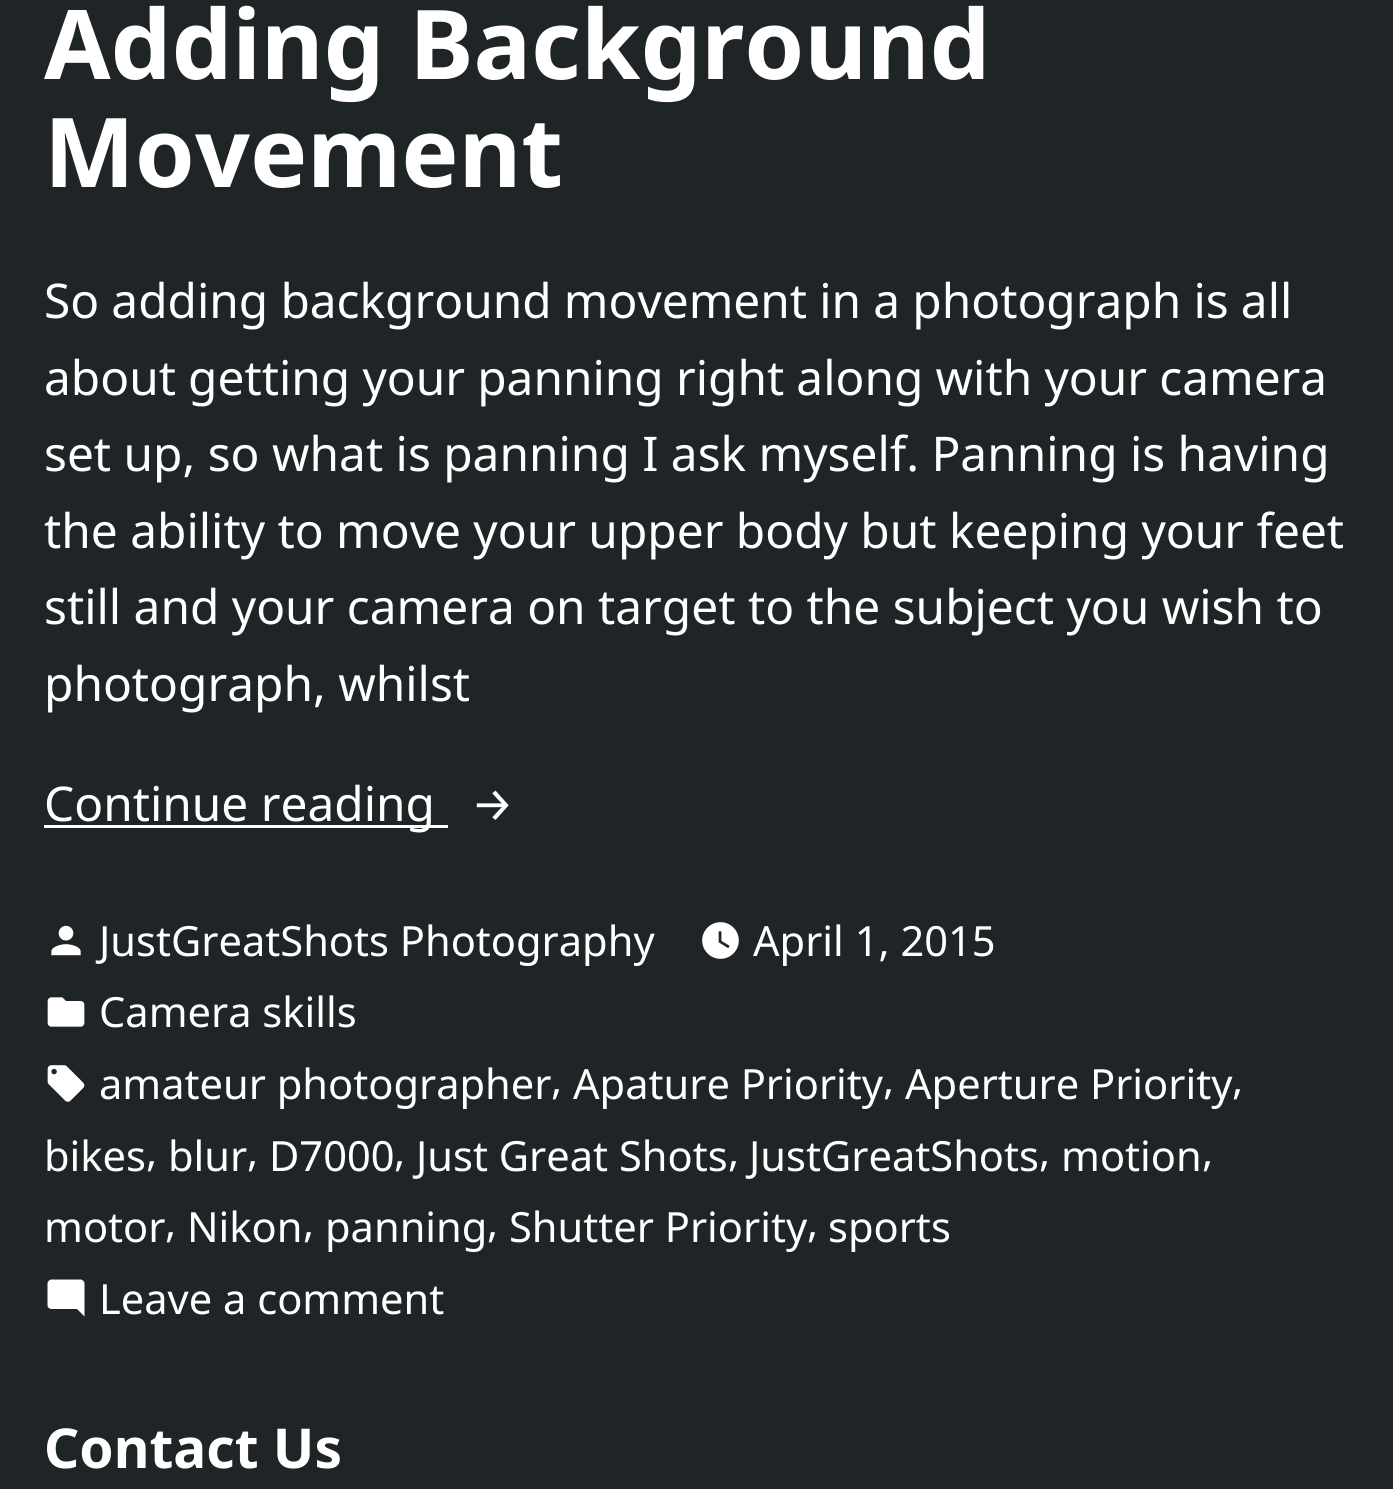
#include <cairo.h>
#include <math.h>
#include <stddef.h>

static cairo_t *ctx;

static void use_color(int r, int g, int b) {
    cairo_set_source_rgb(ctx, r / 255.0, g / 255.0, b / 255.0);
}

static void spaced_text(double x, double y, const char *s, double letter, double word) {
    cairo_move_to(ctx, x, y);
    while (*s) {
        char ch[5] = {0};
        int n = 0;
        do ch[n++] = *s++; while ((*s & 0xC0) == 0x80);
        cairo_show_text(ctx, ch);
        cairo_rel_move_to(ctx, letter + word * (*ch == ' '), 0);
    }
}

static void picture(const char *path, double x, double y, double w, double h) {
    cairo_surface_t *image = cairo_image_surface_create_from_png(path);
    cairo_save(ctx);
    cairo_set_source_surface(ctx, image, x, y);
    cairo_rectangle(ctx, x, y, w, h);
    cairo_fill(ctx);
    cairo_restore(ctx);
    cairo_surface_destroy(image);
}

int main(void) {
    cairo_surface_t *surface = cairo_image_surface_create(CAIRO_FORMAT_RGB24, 1393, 1489);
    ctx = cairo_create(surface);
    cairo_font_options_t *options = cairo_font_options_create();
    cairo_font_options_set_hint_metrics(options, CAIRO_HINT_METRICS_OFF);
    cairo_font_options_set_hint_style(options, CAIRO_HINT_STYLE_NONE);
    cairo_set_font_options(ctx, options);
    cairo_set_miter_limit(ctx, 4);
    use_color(31, 37, 39);
    cairo_paint(ctx);
    cairo_select_font_face(ctx, "Noto Sans", CAIRO_FONT_SLANT_NORMAL, CAIRO_FONT_WEIGHT_BOLD);
    cairo_set_font_size(ctx, 96.25);
    use_color(255, 255, 255);
    cairo_move_to(ctx, 44, 79);
    cairo_show_text(ctx, "Adding Background");
    cairo_move_to(ctx, 44, 187);
    cairo_show_text(ctx, "Movement");
    cairo_select_font_face(ctx, "Noto Sans", CAIRO_FONT_SLANT_NORMAL, CAIRO_FONT_WEIGHT_NORMAL);
    cairo_set_font_size(ctx, 47.8);
    spaced_text(44, 318, "So adding background movement in a photograph is all", 0, -0.25);
    spaced_text(44, 395, "about getting your panning right along with your camera", 0, -0.25);
    cairo_move_to(ctx, 44, 471);
    cairo_show_text(ctx, "set up, so what is panning I ask myself. Panning is having");
    cairo_move_to(ctx, 44, 548);
    cairo_show_text(ctx, "the ability to move your upper body but keeping your feet");
    cairo_move_to(ctx, 44, 624);
    cairo_show_text(ctx, "still and your camera on target to the subject you wish to");
    cairo_move_to(ctx, 44, 701);
    cairo_show_text(ctx, "photograph, whilst");
    cairo_rectangle(ctx, 44, 825, 404, 3);
    cairo_fill(ctx);
    cairo_move_to(ctx, 44, 821);
    cairo_show_text(ctx, "Continue reading");
    cairo_select_font_face(ctx, "Fira Sans", CAIRO_FONT_SLANT_NORMAL, CAIRO_FONT_WEIGHT_NORMAL);
    cairo_move_to(ctx, 471, 821);
    cairo_show_text(ctx, "→");
    picture("img1.png", 51, 925, 30, 31);
    cairo_select_font_face(ctx, "Noto Sans", CAIRO_FONT_SLANT_NORMAL, CAIRO_FONT_WEIGHT_NORMAL);
    cairo_set_font_size(ctx, 41.6);
    cairo_move_to(ctx, 99, 956);
    cairo_show_text(ctx, "JustGreatShots Photography");
    picture("img2.png", 702, 922, 37, 37);
    cairo_move_to(ctx, 753, 956);
    cairo_show_text(ctx, "April 1, 2015");
    picture("img3.png", 47, 997, 38, 30);
    cairo_move_to(ctx, 99, 1027);
    cairo_show_text(ctx, "Camera skills");
    picture("img4.png", 47, 1065, 38, 37);
    cairo_move_to(ctx, 99, 1099);
    cairo_show_text(ctx, "amateur photographer");
    cairo_move_to(ctx, 551, 1094);
    cairo_show_text(ctx, ",");
    cairo_move_to(ctx, 573, 1099);
    cairo_show_text(ctx, "Apature Priority");
    cairo_move_to(ctx, 883, 1094);
    cairo_show_text(ctx, ",");
    cairo_move_to(ctx, 905, 1099);
    cairo_show_text(ctx, "Aperture Priority");
    cairo_move_to(ctx, 1232, 1094);
    cairo_show_text(ctx, ",");
    cairo_move_to(ctx, 44, 1171);
    cairo_show_text(ctx, "bikes");
    cairo_move_to(ctx, 146, 1166);
    cairo_show_text(ctx, ",");
    cairo_move_to(ctx, 168, 1171);
    cairo_show_text(ctx, "blur");
    cairo_move_to(ctx, 247, 1166);
    cairo_show_text(ctx, ",");
    cairo_move_to(ctx, 269, 1171);
    cairo_show_text(ctx, "D7000");
    cairo_move_to(ctx, 394, 1166);
    cairo_show_text(ctx, ",");
    cairo_move_to(ctx, 416, 1171);
    cairo_show_text(ctx, "Just Great Shots");
    cairo_move_to(ctx, 728, 1166);
    cairo_show_text(ctx, ",");
    cairo_move_to(ctx, 749, 1171);
    cairo_show_text(ctx, "JustGreatShots");
    cairo_move_to(ctx, 1039, 1166);
    cairo_show_text(ctx, ",");
    cairo_move_to(ctx, 1061, 1171);
    cairo_show_text(ctx, "motion");
    cairo_move_to(ctx, 1202, 1166);
    cairo_show_text(ctx, ",");
    cairo_move_to(ctx, 44, 1242);
    cairo_show_text(ctx, "motor");
    cairo_move_to(ctx, 165, 1237);
    cairo_show_text(ctx, ",");
    cairo_move_to(ctx, 187, 1242);
    cairo_show_text(ctx, "Nikon");
    cairo_move_to(ctx, 303, 1237);
    cairo_show_text(ctx, ",");
    cairo_move_to(ctx, 325, 1242);
    cairo_show_text(ctx, "panning");
    cairo_move_to(ctx, 487, 1237);
    cairo_show_text(ctx, ",");
    cairo_move_to(ctx, 509, 1242);
    cairo_show_text(ctx, "Shutter Priority");
    cairo_move_to(ctx, 807, 1237);
    cairo_show_text(ctx, ",");
    cairo_move_to(ctx, 828, 1242);
    cairo_show_text(ctx, "sports");
    cairo_new_path(ctx);
    cairo_move_to(ctx, 84.5, 1283.5);
    cairo_curve_to(ctx, 84.5, 1281.5, 82.5, 1279.5, 80.5, 1279.5);
    cairo_line_to(ctx, 51.5, 1279.5);
    cairo_curve_to(ctx, 49.5, 1279.5, 47.5, 1281.5, 47.5, 1283.5);
    cairo_line_to(ctx, 47.5, 1305.5);
    cairo_curve_to(ctx, 47.5, 1307.5, 49.5, 1309, 51.5, 1309);
    cairo_line_to(ctx, 77, 1309);
    cairo_line_to(ctx, 84.5, 1316.5);
    cairo_close_path(ctx);
    cairo_fill(ctx);
    cairo_move_to(ctx, 99, 1314);
    cairo_show_text(ctx, "Leave a comment");
    cairo_select_font_face(ctx, "Noto Sans", CAIRO_FONT_SLANT_NORMAL, CAIRO_FONT_WEIGHT_BOLD);
    cairo_set_font_size(ctx, 55);
    cairo_move_to(ctx, 44, 1468);
    cairo_show_text(ctx, "Contact Us");
    cairo_surface_write_to_png(surface, "result.png");
    cairo_font_options_destroy(options);
    cairo_destroy(ctx);
    cairo_surface_destroy(surface);
    return 0;
}
